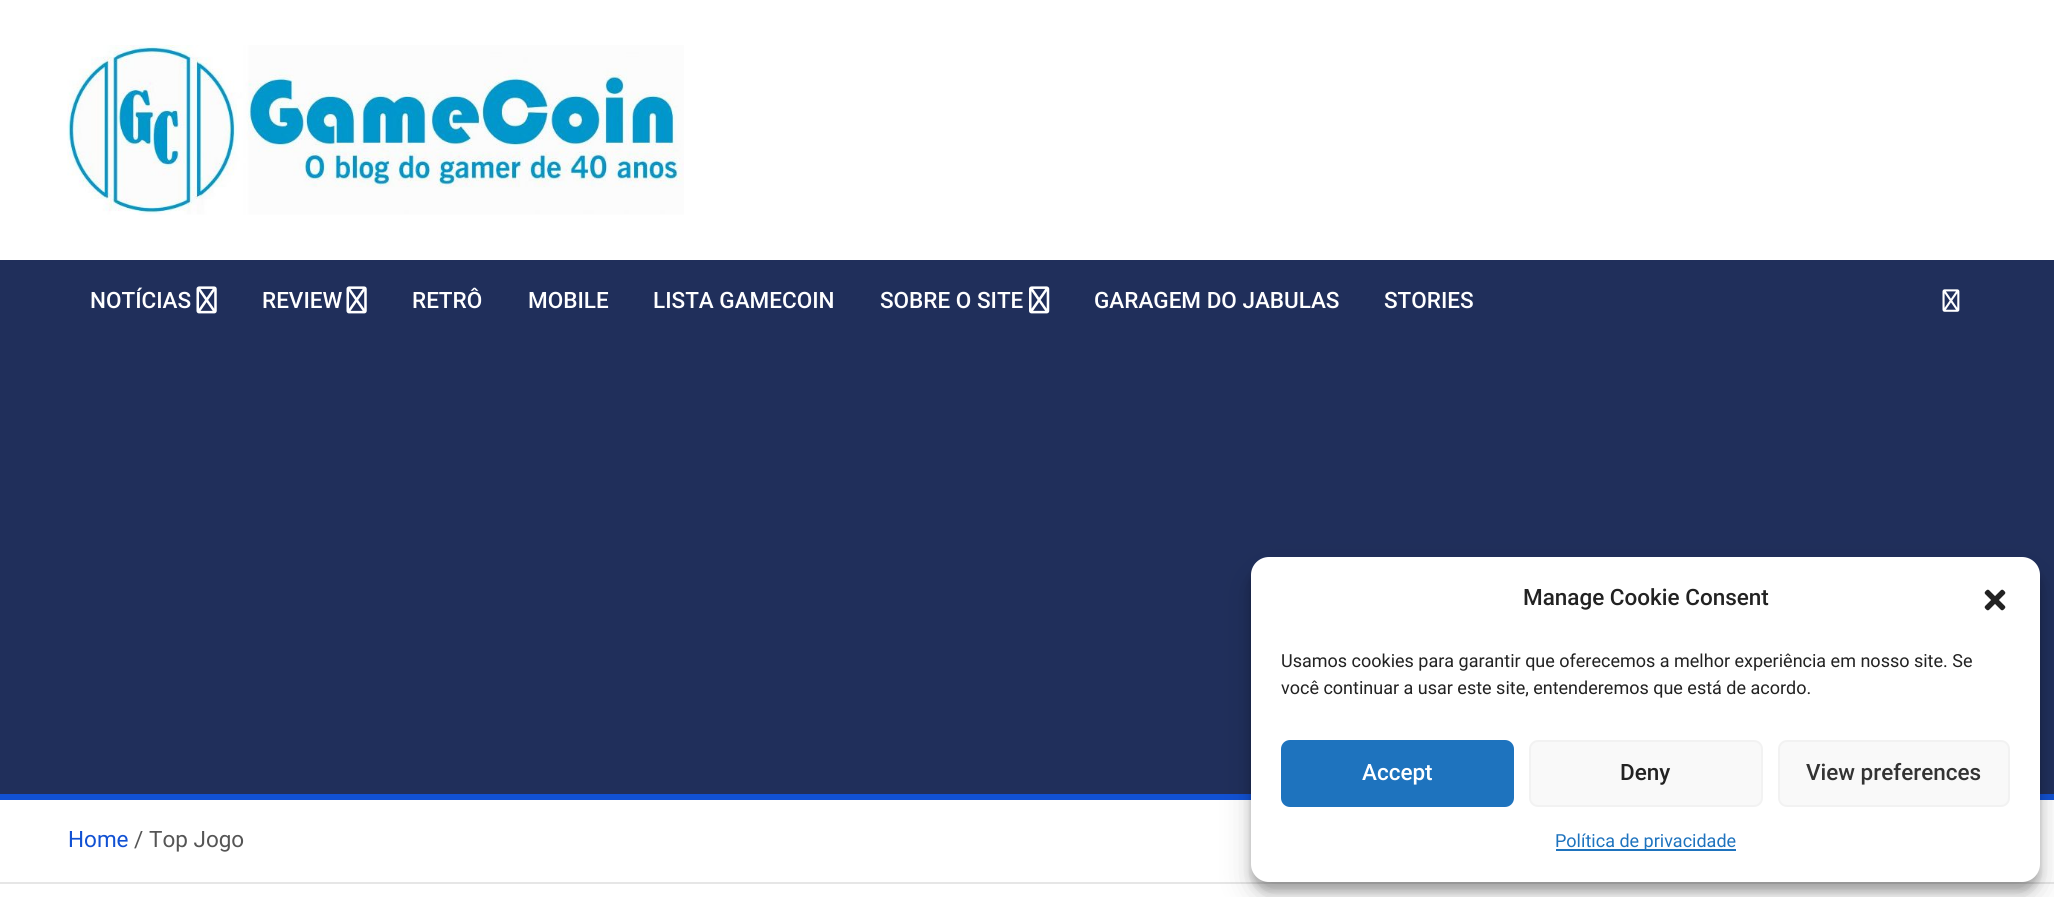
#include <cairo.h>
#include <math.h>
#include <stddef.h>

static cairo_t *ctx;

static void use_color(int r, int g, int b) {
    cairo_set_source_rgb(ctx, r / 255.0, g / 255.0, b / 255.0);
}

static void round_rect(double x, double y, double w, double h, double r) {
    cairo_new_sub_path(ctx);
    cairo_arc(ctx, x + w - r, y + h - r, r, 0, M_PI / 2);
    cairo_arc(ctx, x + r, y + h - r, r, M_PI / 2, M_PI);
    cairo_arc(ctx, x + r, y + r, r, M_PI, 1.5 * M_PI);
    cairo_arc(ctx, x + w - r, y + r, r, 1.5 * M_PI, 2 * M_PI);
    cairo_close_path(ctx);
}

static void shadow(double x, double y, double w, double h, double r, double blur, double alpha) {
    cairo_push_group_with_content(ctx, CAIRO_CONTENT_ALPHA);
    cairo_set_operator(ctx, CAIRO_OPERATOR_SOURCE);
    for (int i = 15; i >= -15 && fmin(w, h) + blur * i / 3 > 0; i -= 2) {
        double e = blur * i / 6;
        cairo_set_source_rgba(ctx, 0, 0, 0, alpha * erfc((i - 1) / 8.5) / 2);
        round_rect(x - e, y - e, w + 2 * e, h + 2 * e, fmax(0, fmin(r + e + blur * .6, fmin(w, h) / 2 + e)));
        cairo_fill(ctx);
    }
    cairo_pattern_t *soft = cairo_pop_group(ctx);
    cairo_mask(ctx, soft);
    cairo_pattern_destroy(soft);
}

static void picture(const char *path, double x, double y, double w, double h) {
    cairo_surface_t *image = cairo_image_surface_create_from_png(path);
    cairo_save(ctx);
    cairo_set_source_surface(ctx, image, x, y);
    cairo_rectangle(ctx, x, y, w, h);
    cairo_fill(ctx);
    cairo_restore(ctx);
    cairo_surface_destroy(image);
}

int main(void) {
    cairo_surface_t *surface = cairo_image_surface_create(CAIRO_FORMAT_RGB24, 2054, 897);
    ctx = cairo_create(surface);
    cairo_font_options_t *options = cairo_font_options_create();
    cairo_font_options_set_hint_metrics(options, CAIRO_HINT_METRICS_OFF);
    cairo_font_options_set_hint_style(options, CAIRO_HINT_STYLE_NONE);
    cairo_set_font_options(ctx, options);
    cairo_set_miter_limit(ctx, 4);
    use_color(255, 255, 255);
    cairo_paint(ctx);
    picture("img1.png", 67, 45, 617, 170);
    use_color(32, 47, 91);
    cairo_rectangle(ctx, 0, 260, 2054, 534);
    cairo_fill(ctx);
    use_color(17, 81, 211);
    cairo_rectangle(ctx, 0, 794, 2054, 6);
    cairo_fill(ctx);
    cairo_select_font_face(ctx, "Roboto Medium", CAIRO_FONT_SLANT_NORMAL, CAIRO_FONT_WEIGHT_NORMAL);
    cairo_set_font_size(ctx, 22.5);
    use_color(255, 255, 255);
    cairo_move_to(ctx, 90, 308);
    cairo_show_text(ctx, "NOTÍCIAS");
    picture("img2.png", 196, 286, 21, 28);
    cairo_move_to(ctx, 262, 308);
    cairo_show_text(ctx, "REVIEW");
    picture("img2.png", 346, 286, 21, 28);
    cairo_move_to(ctx, 412, 308);
    cairo_show_text(ctx, "RETRÔ");
    cairo_move_to(ctx, 528, 308);
    cairo_show_text(ctx, "MOBILE");
    cairo_move_to(ctx, 653, 308);
    cairo_show_text(ctx, "LISTA GAMECOIN");
    cairo_move_to(ctx, 880, 308);
    cairo_show_text(ctx, "SOBRE O SITE");
    picture("img3.png", 1029, 286, 21, 28);
    cairo_move_to(ctx, 1094, 308);
    cairo_show_text(ctx, "GARAGEM DO JABULAS");
    cairo_move_to(ctx, 1384, 308);
    cairo_show_text(ctx, "STORIES");
    picture("img4.png", 1942, 289, 18, 23);
    use_color(230, 230, 230);
    cairo_rectangle(ctx, 0, 882, 2054, 2);
    cairo_fill(ctx);
    cairo_select_font_face(ctx, "Roboto", CAIRO_FONT_SLANT_NORMAL, CAIRO_FONT_WEIGHT_NORMAL);
    use_color(17, 81, 211);
    cairo_move_to(ctx, 68, 847);
    cairo_show_text(ctx, "Home");
    use_color(85, 85, 85);
    cairo_move_to(ctx, 134, 847);
    cairo_show_text(ctx, "/");
    cairo_move_to(ctx, 149, 847);
    cairo_show_text(ctx, "Top Jogo");
    use_color(0, 0, 0);
    shadow(1251, 566, 789, 325, 18, 4.5, 0.23);
    shadow(1251, 572, 789, 325, 18, 15, 0.19);
    use_color(255, 255, 255);
    round_rect(1251, 557, 789, 325, 18);
    cairo_fill(ctx);
    cairo_select_font_face(ctx, "Roboto Medium", CAIRO_FONT_SLANT_NORMAL, CAIRO_FONT_WEIGHT_NORMAL);
    use_color(34, 34, 34);
    cairo_move_to(ctx, 1523, 605);
    cairo_show_text(ctx, "Manage Cookie Consent");
    picture("img5.png", 1984, 589, 22, 22);
    cairo_select_font_face(ctx, "Roboto", CAIRO_FONT_SLANT_NORMAL, CAIRO_FONT_WEIGHT_NORMAL);
    cairo_set_font_size(ctx, 18);
    cairo_move_to(ctx, 1281, 667);
    cairo_show_text(ctx, "Usamos cookies para garantir que oferecemos a melhor experiência em nosso site. Se");
    cairo_move_to(ctx, 1281, 694);
    cairo_show_text(ctx, "você continuar a usar este site, entenderemos que está de acordo.");
    use_color(30, 115, 190);
    round_rect(1282, 741, 231, 65, 8);
    cairo_fill_preserve(ctx);
    cairo_stroke(ctx);
    cairo_select_font_face(ctx, "Roboto Medium", CAIRO_FONT_SLANT_NORMAL, CAIRO_FONT_WEIGHT_NORMAL);
    cairo_set_font_size(ctx, 22.5);
    use_color(255, 255, 255);
    cairo_move_to(ctx, 1362, 780);
    cairo_show_text(ctx, "Accept");
    use_color(249, 249, 249);
    round_rect(1530, 741, 232, 65, 8);
    cairo_fill_preserve(ctx);
    use_color(242, 242, 242);
    cairo_stroke(ctx);
    use_color(34, 34, 34);
    cairo_move_to(ctx, 1620, 780);
    cairo_show_text(ctx, "Deny");
    use_color(249, 249, 249);
    round_rect(1779, 741, 230, 65, 8);
    cairo_fill_preserve(ctx);
    use_color(242, 242, 242);
    cairo_stroke(ctx);
    use_color(51, 51, 51);
    cairo_move_to(ctx, 1806, 780);
    cairo_show_text(ctx, "View preferences");
    use_color(30, 115, 190);
    cairo_rectangle(ctx, 1556, 849, 180, 2);
    cairo_fill(ctx);
    cairo_select_font_face(ctx, "Roboto", CAIRO_FONT_SLANT_NORMAL, CAIRO_FONT_WEIGHT_NORMAL);
    cairo_set_font_size(ctx, 18);
    cairo_move_to(ctx, 1555, 847);
    cairo_show_text(ctx, "Política de privacidade");
    cairo_surface_write_to_png(surface, "result.png");
    cairo_font_options_destroy(options);
    cairo_destroy(ctx);
    cairo_surface_destroy(surface);
    return 0;
}
